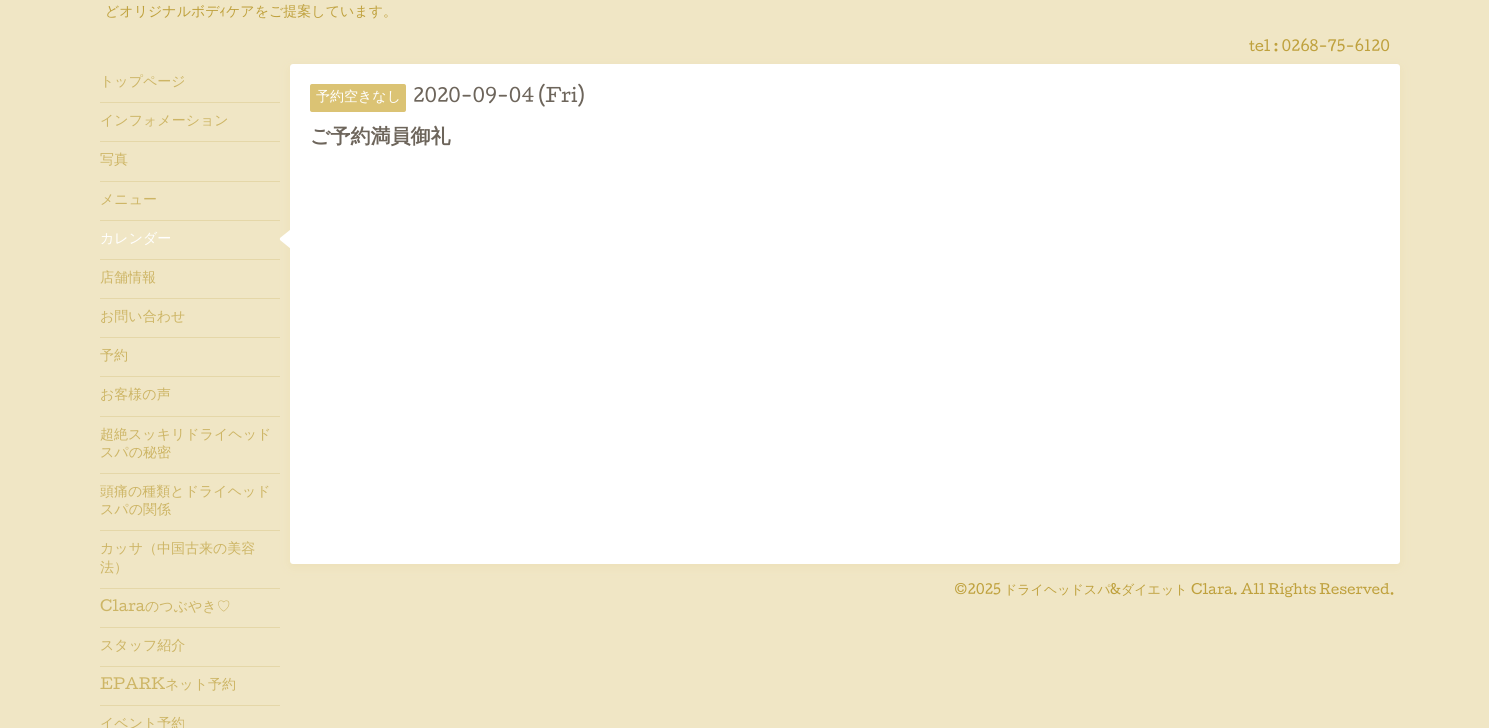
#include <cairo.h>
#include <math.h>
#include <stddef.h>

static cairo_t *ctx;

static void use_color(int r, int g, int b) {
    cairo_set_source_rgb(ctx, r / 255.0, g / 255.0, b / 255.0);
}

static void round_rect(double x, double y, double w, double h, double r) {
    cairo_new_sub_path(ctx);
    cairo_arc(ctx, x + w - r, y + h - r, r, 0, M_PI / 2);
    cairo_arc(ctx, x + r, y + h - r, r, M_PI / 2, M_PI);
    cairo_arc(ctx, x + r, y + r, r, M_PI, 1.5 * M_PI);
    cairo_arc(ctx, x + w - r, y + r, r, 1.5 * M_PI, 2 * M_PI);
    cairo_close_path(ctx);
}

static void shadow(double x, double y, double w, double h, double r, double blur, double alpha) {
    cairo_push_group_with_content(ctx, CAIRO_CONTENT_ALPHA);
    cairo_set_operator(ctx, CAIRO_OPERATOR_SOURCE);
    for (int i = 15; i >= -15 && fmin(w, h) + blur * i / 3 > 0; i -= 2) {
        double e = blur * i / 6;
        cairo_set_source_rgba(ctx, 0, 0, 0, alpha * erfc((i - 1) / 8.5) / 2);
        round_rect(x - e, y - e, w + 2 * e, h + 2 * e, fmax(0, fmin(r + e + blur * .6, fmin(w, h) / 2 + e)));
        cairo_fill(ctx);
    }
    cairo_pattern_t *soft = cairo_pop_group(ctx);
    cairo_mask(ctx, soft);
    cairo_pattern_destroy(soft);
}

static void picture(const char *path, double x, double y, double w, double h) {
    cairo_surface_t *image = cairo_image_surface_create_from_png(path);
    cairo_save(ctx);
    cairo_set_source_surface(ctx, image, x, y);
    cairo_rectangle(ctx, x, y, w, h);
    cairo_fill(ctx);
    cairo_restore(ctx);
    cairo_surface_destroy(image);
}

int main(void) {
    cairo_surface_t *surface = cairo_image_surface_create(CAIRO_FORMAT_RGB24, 1489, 728);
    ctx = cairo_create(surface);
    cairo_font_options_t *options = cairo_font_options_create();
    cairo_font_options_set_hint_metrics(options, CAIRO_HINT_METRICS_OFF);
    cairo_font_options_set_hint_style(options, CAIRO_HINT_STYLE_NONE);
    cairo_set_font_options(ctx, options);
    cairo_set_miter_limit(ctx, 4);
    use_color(240, 230, 197);
    cairo_paint(ctx);
    cairo_select_font_face(ctx, "WenQuanYi Zen Hei Medium", CAIRO_FONT_SLANT_NORMAL, CAIRO_FONT_WEIGHT_NORMAL);
    cairo_set_font_size(ctx, 14);
    use_color(191, 161, 61);
    cairo_move_to(ctx, 105, 16);
    cairo_show_text(ctx, "どオリジナルボデ");
    cairo_select_font_face(ctx, "IPAPGothic", CAIRO_FONT_SLANT_NORMAL, CAIRO_FONT_WEIGHT_NORMAL);
    cairo_move_to(ctx, 219, 16);
    cairo_show_text(ctx, "ｨ");
    cairo_select_font_face(ctx, "WenQuanYi Zen Hei Medium", CAIRO_FONT_SLANT_NORMAL, CAIRO_FONT_WEIGHT_NORMAL);
    cairo_move_to(ctx, 226, 16);
    cairo_show_text(ctx, "ケアをご提案しています。");
    cairo_select_font_face(ctx, "Cutive", CAIRO_FONT_SLANT_NORMAL, CAIRO_FONT_WEIGHT_NORMAL);
    cairo_move_to(ctx, 1249, 51);
    cairo_show_text(ctx, "tel : 0268-75-6120");
    cairo_select_font_face(ctx, "WenQuanYi Zen Hei Medium", CAIRO_FONT_SLANT_NORMAL, CAIRO_FONT_WEIGHT_NORMAL);
    use_color(205, 181, 101);
    cairo_move_to(ctx, 100, 86);
    cairo_show_text(ctx, "トップページ");
    use_color(232, 216, 165);
    shadow(290, 67, 1110, 500, 3, 5, 0.4);
    use_color(229, 215, 168);
    cairo_rectangle(ctx, 100, 102, 180, 1);
    cairo_fill(ctx);
    use_color(205, 181, 101);
    cairo_move_to(ctx, 100, 125);
    cairo_show_text(ctx, "インフォメーション");
    use_color(229, 215, 168);
    cairo_rectangle(ctx, 100, 141, 180, 1);
    cairo_fill(ctx);
    use_color(205, 181, 101);
    cairo_move_to(ctx, 100, 164);
    cairo_show_text(ctx, "写真");
    use_color(229, 215, 168);
    cairo_rectangle(ctx, 100, 181, 180, 1);
    cairo_fill(ctx);
    use_color(205, 181, 101);
    cairo_move_to(ctx, 100, 204);
    cairo_show_text(ctx, "メニュー");
    picture("img1.png", 279, 230, 11, 18);
    use_color(229, 215, 168);
    cairo_rectangle(ctx, 100, 220, 180, 1);
    cairo_fill(ctx);
    use_color(255, 255, 255);
    cairo_move_to(ctx, 100, 243);
    cairo_show_text(ctx, "カレンダー");
    use_color(229, 215, 168);
    cairo_rectangle(ctx, 100, 259, 180, 1);
    cairo_fill(ctx);
    use_color(205, 181, 101);
    cairo_move_to(ctx, 100, 282);
    cairo_show_text(ctx, "店舗情報");
    use_color(229, 215, 168);
    cairo_rectangle(ctx, 100, 298, 180, 1);
    cairo_fill(ctx);
    use_color(205, 181, 101);
    cairo_move_to(ctx, 100, 321);
    cairo_show_text(ctx, "お問い合わせ");
    use_color(229, 215, 168);
    cairo_rectangle(ctx, 100, 337, 180, 1);
    cairo_fill(ctx);
    use_color(205, 181, 101);
    cairo_move_to(ctx, 100, 360);
    cairo_show_text(ctx, "予約");
    use_color(229, 215, 168);
    cairo_rectangle(ctx, 100, 376, 180, 1);
    cairo_fill(ctx);
    use_color(205, 181, 101);
    cairo_move_to(ctx, 100, 399);
    cairo_show_text(ctx, "お客様の声");
    use_color(229, 215, 168);
    cairo_rectangle(ctx, 100, 416, 180, 1);
    cairo_fill(ctx);
    use_color(205, 181, 101);
    cairo_move_to(ctx, 100, 439);
    cairo_show_text(ctx, "超絶スッキリドライヘッド");
    cairo_move_to(ctx, 100, 457);
    cairo_show_text(ctx, "スパの秘密");
    use_color(229, 215, 168);
    cairo_rectangle(ctx, 100, 473, 180, 1);
    cairo_fill(ctx);
    use_color(205, 181, 101);
    cairo_move_to(ctx, 100, 496);
    cairo_show_text(ctx, "頭痛の種類とドライヘッド");
    cairo_move_to(ctx, 100, 514);
    cairo_show_text(ctx, "スパの関係");
    use_color(229, 215, 168);
    cairo_rectangle(ctx, 100, 530, 180, 1);
    cairo_fill(ctx);
    use_color(205, 181, 101);
    cairo_move_to(ctx, 100, 553);
    cairo_show_text(ctx, "カッサ（中国古来の美容");
    cairo_move_to(ctx, 100, 572);
    cairo_show_text(ctx, "法）");
    use_color(229, 215, 168);
    cairo_rectangle(ctx, 100, 588, 180, 1);
    cairo_fill(ctx);
    cairo_select_font_face(ctx, "Cutive", CAIRO_FONT_SLANT_NORMAL, CAIRO_FONT_WEIGHT_NORMAL);
    use_color(205, 181, 101);
    cairo_move_to(ctx, 100, 611);
    cairo_show_text(ctx, "Clara");
    cairo_select_font_face(ctx, "WenQuanYi Zen Hei Medium", CAIRO_FONT_SLANT_NORMAL, CAIRO_FONT_WEIGHT_NORMAL);
    cairo_move_to(ctx, 145, 611);
    cairo_show_text(ctx, "のつぶやき♡");
    use_color(229, 215, 168);
    cairo_rectangle(ctx, 100, 627, 180, 1);
    cairo_fill(ctx);
    use_color(205, 181, 101);
    cairo_move_to(ctx, 100, 650);
    cairo_show_text(ctx, "スタッフ紹介");
    use_color(229, 215, 168);
    cairo_rectangle(ctx, 100, 666, 180, 1);
    cairo_fill(ctx);
    cairo_select_font_face(ctx, "Cutive", CAIRO_FONT_SLANT_NORMAL, CAIRO_FONT_WEIGHT_NORMAL);
    use_color(205, 181, 101);
    cairo_move_to(ctx, 100, 689);
    cairo_show_text(ctx, "EPARK");
    cairo_select_font_face(ctx, "WenQuanYi Zen Hei Medium", CAIRO_FONT_SLANT_NORMAL, CAIRO_FONT_WEIGHT_NORMAL);
    cairo_move_to(ctx, 165, 689);
    cairo_show_text(ctx, "ネット予約");
    use_color(229, 215, 168);
    cairo_rectangle(ctx, 100, 705, 180, 1);
    cairo_fill(ctx);
    use_color(205, 181, 101);
    cairo_move_to(ctx, 100, 728);
    cairo_show_text(ctx, "イベント予約");
    use_color(255, 255, 255);
    round_rect(290, 64, 1110, 500, 3);
    cairo_fill(ctx);
    use_color(219, 195, 116);
    round_rect(310, 84, 96, 28, 2);
    cairo_fill(ctx);
    use_color(255, 255, 255);
    cairo_move_to(ctx, 316, 101);
    cairo_show_text(ctx, "予約空きなし");
    cairo_select_font_face(ctx, "Cutive", CAIRO_FONT_SLANT_NORMAL, CAIRO_FONT_WEIGHT_NORMAL);
    cairo_set_font_size(ctx, 18);
    use_color(109, 101, 91);
    cairo_move_to(ctx, 413, 102);
    cairo_show_text(ctx, "2020-09-04 (Fri)");
    cairo_select_font_face(ctx, "WenQuanYi Zen Hei", CAIRO_FONT_SLANT_NORMAL, CAIRO_FONT_WEIGHT_BOLD);
    cairo_set_font_size(ctx, 20);
    cairo_move_to(ctx, 310, 143);
    cairo_show_text(ctx, "ご予約満員御礼");
    cairo_select_font_face(ctx, "Cutive", CAIRO_FONT_SLANT_NORMAL, CAIRO_FONT_WEIGHT_NORMAL);
    cairo_set_font_size(ctx, 13);
    use_color(191, 161, 61);
    cairo_move_to(ctx, 954, 594);
    cairo_show_text(ctx, "©2025");
    cairo_select_font_face(ctx, "WenQuanYi Zen Hei Medium", CAIRO_FONT_SLANT_NORMAL, CAIRO_FONT_WEIGHT_NORMAL);
    cairo_move_to(ctx, 1004, 594);
    cairo_show_text(ctx, "ドライヘッドスパ");
    cairo_select_font_face(ctx, "Cutive", CAIRO_FONT_SLANT_NORMAL, CAIRO_FONT_WEIGHT_NORMAL);
    cairo_move_to(ctx, 1110, 594);
    cairo_show_text(ctx, "&");
    cairo_select_font_face(ctx, "WenQuanYi Zen Hei Medium", CAIRO_FONT_SLANT_NORMAL, CAIRO_FONT_WEIGHT_NORMAL);
    cairo_move_to(ctx, 1121, 594);
    cairo_show_text(ctx, "ダイエット");
    cairo_select_font_face(ctx, "Cutive", CAIRO_FONT_SLANT_NORMAL, CAIRO_FONT_WEIGHT_NORMAL);
    cairo_move_to(ctx, 1191, 594);
    cairo_show_text(ctx, "Clara. All Rights Reserved.");
    cairo_surface_write_to_png(surface, "result.png");
    cairo_font_options_destroy(options);
    cairo_destroy(ctx);
    cairo_surface_destroy(surface);
    return 0;
}
